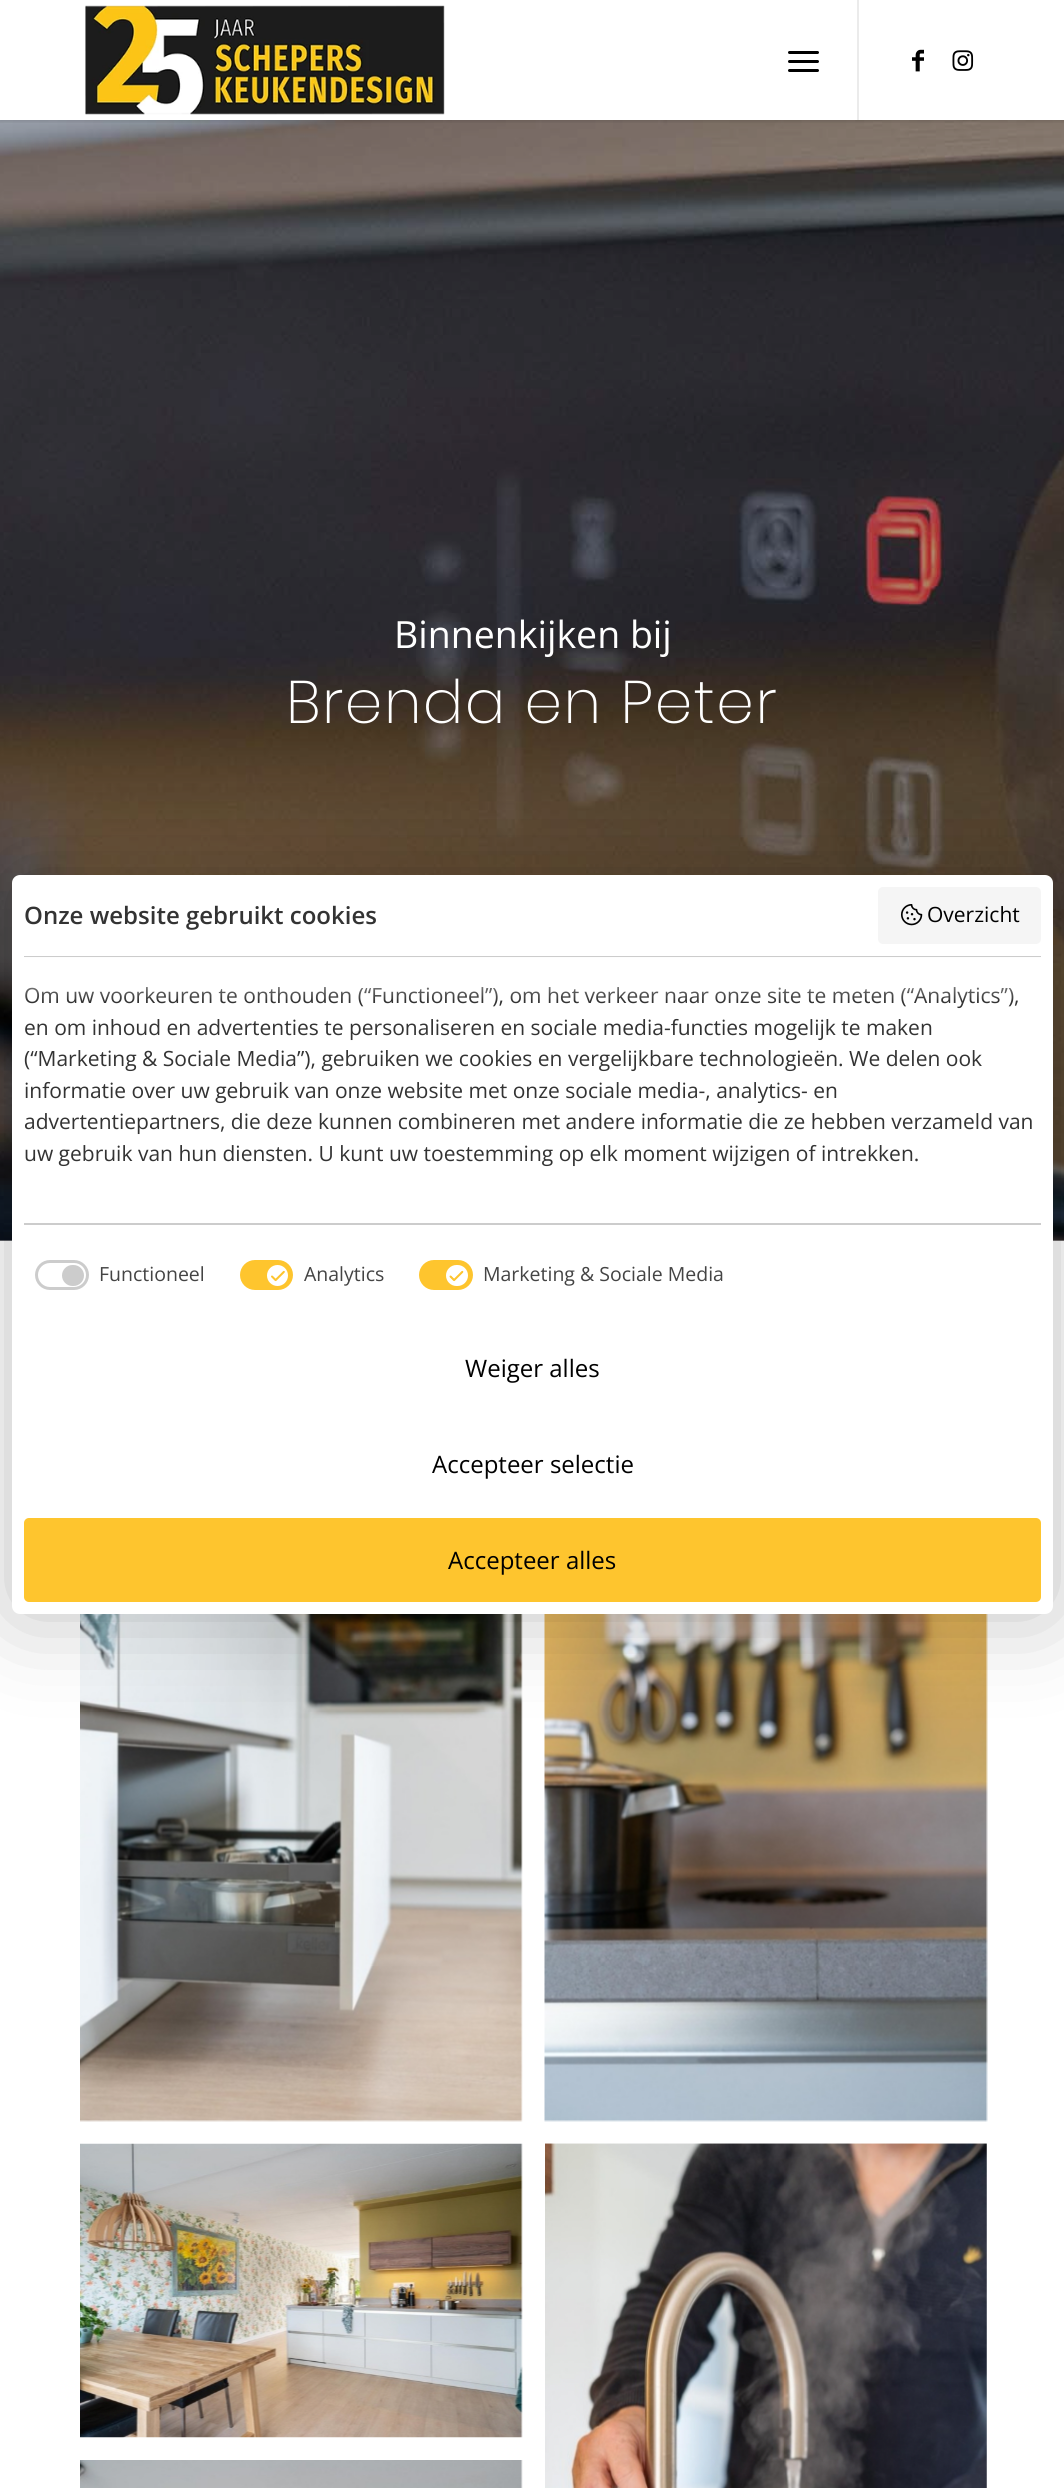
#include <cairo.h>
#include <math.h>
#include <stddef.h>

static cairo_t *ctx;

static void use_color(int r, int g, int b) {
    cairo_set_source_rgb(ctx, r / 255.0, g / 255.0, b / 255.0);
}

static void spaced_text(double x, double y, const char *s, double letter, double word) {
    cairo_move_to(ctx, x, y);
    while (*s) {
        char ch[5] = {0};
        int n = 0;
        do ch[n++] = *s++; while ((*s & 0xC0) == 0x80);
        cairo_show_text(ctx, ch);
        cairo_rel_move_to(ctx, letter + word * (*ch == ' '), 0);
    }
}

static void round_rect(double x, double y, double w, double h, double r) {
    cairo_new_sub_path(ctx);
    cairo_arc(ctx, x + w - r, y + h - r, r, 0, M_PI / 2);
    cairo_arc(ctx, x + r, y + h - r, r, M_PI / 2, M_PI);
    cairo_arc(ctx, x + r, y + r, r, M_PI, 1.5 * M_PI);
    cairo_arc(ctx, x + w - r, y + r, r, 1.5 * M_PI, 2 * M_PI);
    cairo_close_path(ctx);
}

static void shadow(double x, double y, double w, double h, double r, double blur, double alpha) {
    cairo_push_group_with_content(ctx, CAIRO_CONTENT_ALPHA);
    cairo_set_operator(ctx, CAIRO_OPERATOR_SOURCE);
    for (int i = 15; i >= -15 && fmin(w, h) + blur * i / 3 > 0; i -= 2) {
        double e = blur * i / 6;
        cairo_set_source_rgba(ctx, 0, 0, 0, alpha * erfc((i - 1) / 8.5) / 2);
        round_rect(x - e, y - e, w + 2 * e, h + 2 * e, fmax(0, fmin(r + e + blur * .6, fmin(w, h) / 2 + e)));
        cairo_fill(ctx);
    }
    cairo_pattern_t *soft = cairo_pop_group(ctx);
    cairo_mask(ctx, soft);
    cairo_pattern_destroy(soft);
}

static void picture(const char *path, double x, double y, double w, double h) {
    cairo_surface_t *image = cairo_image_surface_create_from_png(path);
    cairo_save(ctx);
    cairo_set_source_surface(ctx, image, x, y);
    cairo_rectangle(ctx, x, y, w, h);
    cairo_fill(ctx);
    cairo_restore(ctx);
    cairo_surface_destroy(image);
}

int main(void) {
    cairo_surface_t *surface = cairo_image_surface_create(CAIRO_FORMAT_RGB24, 1064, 2488);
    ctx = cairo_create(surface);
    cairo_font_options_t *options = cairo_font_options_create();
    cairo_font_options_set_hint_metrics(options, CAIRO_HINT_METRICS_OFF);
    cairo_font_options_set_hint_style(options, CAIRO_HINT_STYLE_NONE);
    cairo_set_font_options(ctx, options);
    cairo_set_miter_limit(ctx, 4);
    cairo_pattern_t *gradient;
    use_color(255, 255, 255);
    cairo_paint(ctx);
    use_color(179, 179, 179);
    cairo_rectangle(ctx, 0, 1240, 1064, 1);
    cairo_fill(ctx);
    picture("img4.png", 0, 120, 1064, 1121);
    cairo_save(ctx);
    cairo_rectangle(ctx, 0, 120, 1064, 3);
    cairo_clip(ctx);
    use_color(0, 0, 0);
    shadow(-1, -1, 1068, 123, 0, 1.5, 0.1);
    cairo_restore(ctx);
    picture("img1.png", 85, 5, 360, 110);
    use_color(235, 235, 235);
    cairo_rectangle(ctx, 857, 0, 2, 120);
    cairo_fill(ctx);
    use_color(0, 0, 0);
    round_rect(788, 60, 31, 3, 1.5);
    cairo_fill(ctx);
    round_rect(788, 51, 31, 3, 1.5);
    cairo_fill(ctx);
    round_rect(788, 69, 31, 3, 1.5);
    cairo_fill(ctx);
    picture("img2.png", 912, 49, 12, 23);
    picture("img3.png", 952, 50, 22, 21);
    cairo_select_font_face(ctx, "Open Sans", CAIRO_FONT_SLANT_NORMAL, CAIRO_FONT_WEIGHT_NORMAL);
    cairo_set_font_size(ctx, 37.5);
    use_color(255, 255, 255);
    cairo_move_to(ctx, 394, 648);
    cairo_show_text(ctx, "Binnenkijken bij");
    cairo_select_font_face(ctx, "Poppins ExtraLight", CAIRO_FONT_SLANT_NORMAL, CAIRO_FONT_WEIGHT_NORMAL);
    cairo_set_font_size(ctx, 60);
    spaced_text(286, 723, "Brenda en Peter", 1.5, 0);
    picture("img5.png", 80, 1614, 443, 508);
    picture("img6.png", 544, 1614, 444, 508);
    picture("img7.png", 80, 2143, 443, 295);
    picture("img8.png", 545, 2143, 442, 345);
    picture("img9.png", 80, 2460, 443, 28);
    use_color(0, 0, 0);
    shadow(12, 875, 1041, 739, 8, 48, 0.25);
    use_color(255, 255, 255);
    round_rect(12, 875, 1041, 739, 8);
    cairo_fill(ctx);
    cairo_select_font_face(ctx, "Open Sans SemiBold", CAIRO_FONT_SLANT_NORMAL, CAIRO_FONT_WEIGHT_NORMAL);
    cairo_set_font_size(ctx, 24);
    use_color(51, 51, 51);
    cairo_move_to(ctx, 24, 924);
    cairo_show_text(ctx, "Onze website gebruikt cookies");
    use_color(245, 245, 245);
    round_rect(878, 887, 163, 57, 5);
    cairo_fill(ctx);
    picture("img10.png", 901, 904, 22, 22);
    cairo_select_font_face(ctx, "Open Sans", CAIRO_FONT_SLANT_NORMAL, CAIRO_FONT_WEIGHT_NORMAL);
    cairo_set_font_size(ctx, 21);
    use_color(0, 0, 0);
    cairo_move_to(ctx, 927, 922);
    cairo_show_text(ctx, "Overzicht");
    use_color(204, 204, 204);
    cairo_rectangle(ctx, 24, 956, 1017, 2);
    cairo_fill(ctx);
    cairo_rectangle(ctx, 24, 1223, 1017, 2);
    cairo_fill(ctx);
    use_color(51, 51, 51);
    cairo_move_to(ctx, 24, 1003);
    cairo_show_text(ctx, "Om uw voorkeuren te onthouden (“Functioneel”), om het verkeer naar onze site te meten (“Analytics”),");
    gradient = cairo_pattern_create_linear(533, 1001, 533, 956);
    cairo_pattern_add_color_stop_rgba(gradient, 0, 1, 1, 1, 0);
    cairo_pattern_add_color_stop_rgba(gradient, 1, 1, 1, 1, 1);
    cairo_set_source(ctx, gradient);
    cairo_pattern_destroy(gradient);
    cairo_rectangle(ctx, 24, 957, 1017, 43);
    cairo_fill(ctx);
    use_color(51, 51, 51);
    cairo_move_to(ctx, 24, 1035);
    cairo_show_text(ctx, "en om inhoud en advertenties te personaliseren en sociale media-functies mogelijk te maken");
    cairo_move_to(ctx, 24, 1066);
    cairo_show_text(ctx, "(“Marketing & Sociale Media”), gebruiken we cookies en vergelijkbare technologieën. We delen ook");
    cairo_move_to(ctx, 24, 1098);
    cairo_show_text(ctx, "informatie over uw gebruik van onze website met onze sociale media-, analytics- en");
    cairo_move_to(ctx, 24, 1129);
    cairo_show_text(ctx, "advertentiepartners, die deze kunnen combineren met andere informatie die ze hebben verzameld van");
    cairo_move_to(ctx, 24, 1161);
    cairo_show_text(ctx, "uw gebruik van hun diensten. U kunt uw toestemming op elk moment wijzigen of intrekken.");
    round_rect(36.5, 1261.5, 51, 27, 13.5);
    use_color(204, 204, 204);
    cairo_set_line_width(ctx, 3);
    cairo_stroke(ctx);
    round_rect(62, 1265, 22, 21, 10.5);
    cairo_fill(ctx);
    cairo_set_font_size(ctx, 19.5);
    use_color(68, 68, 68);
    cairo_move_to(ctx, 99, 1281);
    cairo_show_text(ctx, "Functioneel");
    use_color(254, 197, 46);
    round_rect(241.5, 1261.5, 50, 27, 13.5);
    cairo_fill_preserve(ctx);
    cairo_stroke(ctx);
    use_color(255, 255, 255);
    cairo_arc(ctx, 277.5, 1275.5, 10.5, 0, 2 * M_PI);
    cairo_fill(ctx);
    picture("img11.png", 271, 1270, 14, 12);
    use_color(68, 68, 68);
    cairo_move_to(ctx, 304, 1281);
    cairo_show_text(ctx, "Analytics");
    use_color(254, 197, 46);
    round_rect(420.5, 1261.5, 51, 27, 13.5);
    cairo_fill_preserve(ctx);
    cairo_stroke(ctx);
    use_color(255, 255, 255);
    round_rect(446, 1265, 22, 21, 10.5);
    cairo_fill(ctx);
    picture("img12.png", 449, 1270, 15, 12);
    use_color(68, 68, 68);
    cairo_move_to(ctx, 483, 1281);
    cairo_show_text(ctx, "Marketing & Sociale Media");
    cairo_set_font_size(ctx, 24);
    use_color(0, 0, 0);
    cairo_move_to(ctx, 465, 1377);
    cairo_show_text(ctx, "Weiger alles");
    cairo_move_to(ctx, 432, 1473);
    cairo_show_text(ctx, "Accepteer selectie");
    use_color(254, 197, 46);
    round_rect(24, 1518, 1017, 84, 5);
    cairo_fill(ctx);
    use_color(0, 0, 0);
    cairo_move_to(ctx, 448, 1569);
    cairo_show_text(ctx, "Accepteer alles");
    cairo_surface_write_to_png(surface, "result.png");
    cairo_font_options_destroy(options);
    cairo_destroy(ctx);
    cairo_surface_destroy(surface);
    return 0;
}
